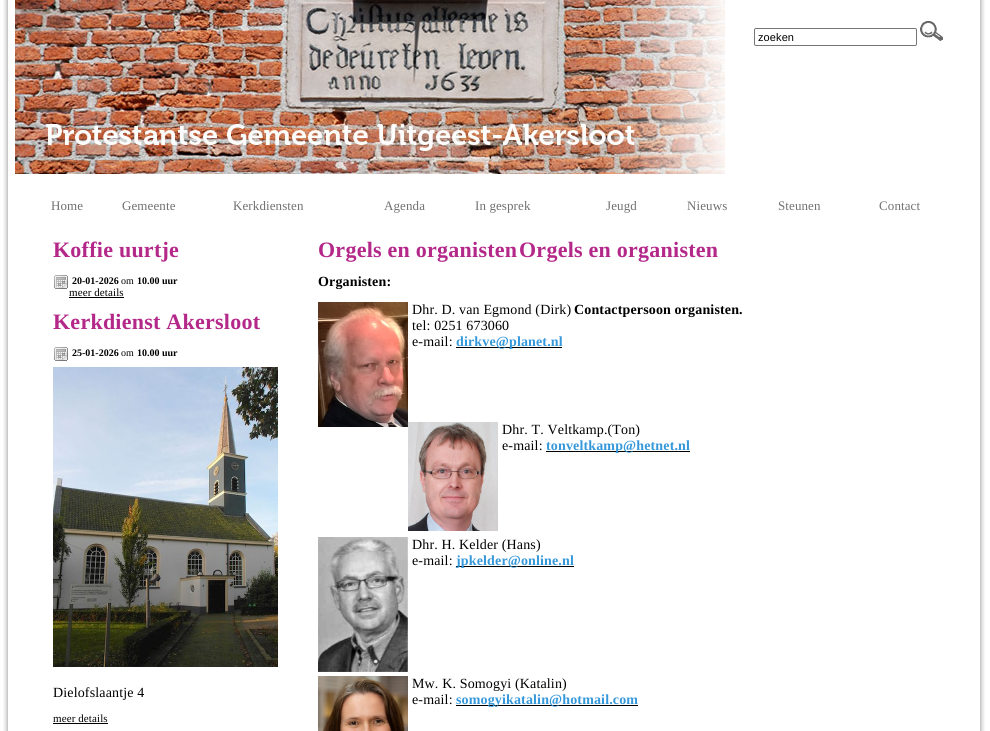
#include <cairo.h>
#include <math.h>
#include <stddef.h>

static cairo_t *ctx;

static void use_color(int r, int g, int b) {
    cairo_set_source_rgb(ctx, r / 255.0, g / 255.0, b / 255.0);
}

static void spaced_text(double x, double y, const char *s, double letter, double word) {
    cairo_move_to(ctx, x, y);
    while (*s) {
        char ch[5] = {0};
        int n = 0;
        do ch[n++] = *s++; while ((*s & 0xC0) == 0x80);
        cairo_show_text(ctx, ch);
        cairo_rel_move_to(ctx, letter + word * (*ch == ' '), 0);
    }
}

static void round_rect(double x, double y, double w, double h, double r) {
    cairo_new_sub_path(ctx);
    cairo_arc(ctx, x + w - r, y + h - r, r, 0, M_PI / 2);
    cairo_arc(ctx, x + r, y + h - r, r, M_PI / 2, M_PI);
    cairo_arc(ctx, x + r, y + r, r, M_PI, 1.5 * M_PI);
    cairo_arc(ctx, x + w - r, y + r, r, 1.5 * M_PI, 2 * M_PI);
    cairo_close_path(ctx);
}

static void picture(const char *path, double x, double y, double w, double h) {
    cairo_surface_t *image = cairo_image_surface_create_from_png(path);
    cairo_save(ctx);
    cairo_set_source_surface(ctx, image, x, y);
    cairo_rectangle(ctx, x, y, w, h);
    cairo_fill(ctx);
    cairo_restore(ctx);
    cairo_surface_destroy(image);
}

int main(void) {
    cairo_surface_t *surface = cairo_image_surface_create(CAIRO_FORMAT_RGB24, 990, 731);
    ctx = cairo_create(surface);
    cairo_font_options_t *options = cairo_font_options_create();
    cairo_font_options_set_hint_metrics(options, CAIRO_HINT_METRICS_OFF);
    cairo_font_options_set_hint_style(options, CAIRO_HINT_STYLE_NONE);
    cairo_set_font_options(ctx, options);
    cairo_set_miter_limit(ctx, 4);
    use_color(255, 255, 255);
    cairo_paint(ctx);
    picture("img1.png", 3, 0, 982, 731);
    picture("img2.png", 15, 0, 710, 174);
    round_rect(754.5, 28.5, 162, 17, 1.5);
    use_color(118, 118, 118);
    cairo_set_line_width(ctx, 1);
    cairo_stroke(ctx);
    cairo_select_font_face(ctx, "Liberation Sans", CAIRO_FONT_SLANT_NORMAL, CAIRO_FONT_WEIGHT_NORMAL);
    cairo_set_font_size(ctx, 11);
    use_color(0, 0, 0);
    spaced_text(758, 41, "zoeken", 0.1, 0);
    picture("img3.png", 920, 20, 23, 21);
    cairo_select_font_face(ctx, "Liberation Serif", CAIRO_FONT_SLANT_NORMAL, CAIRO_FONT_WEIGHT_BOLD);
    cairo_set_font_size(ctx, 22);
    use_color(179, 40, 137);
    spaced_text(53, 257, "Koffie uurtje", 0.25, 0);
    picture("img4.png", 54, 275, 14, 14);
    cairo_set_font_size(ctx, 10);
    use_color(0, 0, 0);
    cairo_move_to(ctx, 72, 284);
    cairo_show_text(ctx, "20-01-2026");
    cairo_select_font_face(ctx, "Liberation Serif", CAIRO_FONT_SLANT_NORMAL, CAIRO_FONT_WEIGHT_NORMAL);
    cairo_move_to(ctx, 121, 284);
    cairo_show_text(ctx, "om");
    cairo_select_font_face(ctx, "Liberation Serif", CAIRO_FONT_SLANT_NORMAL, CAIRO_FONT_WEIGHT_BOLD);
    cairo_move_to(ctx, 137, 284);
    cairo_show_text(ctx, "10.00 uur");
    cairo_select_font_face(ctx, "Liberation Serif", CAIRO_FONT_SLANT_NORMAL, CAIRO_FONT_WEIGHT_NORMAL);
    cairo_set_font_size(ctx, 11);
    spaced_text(69, 296, "meer details", 0.1, 0);
    cairo_rectangle(ctx, 69, 297, 55, 1);
    cairo_fill(ctx);
    cairo_select_font_face(ctx, "Liberation Serif", CAIRO_FONT_SLANT_NORMAL, CAIRO_FONT_WEIGHT_BOLD);
    cairo_set_font_size(ctx, 22);
    use_color(179, 40, 137);
    spaced_text(53, 329, "Kerkdienst Akersloot", 0.25, 0);
    picture("img4.png", 54, 347, 14, 14);
    cairo_set_font_size(ctx, 10);
    use_color(0, 0, 0);
    cairo_move_to(ctx, 72, 356);
    cairo_show_text(ctx, "25-01-2026");
    cairo_select_font_face(ctx, "Liberation Serif", CAIRO_FONT_SLANT_NORMAL, CAIRO_FONT_WEIGHT_NORMAL);
    cairo_move_to(ctx, 121, 356);
    cairo_show_text(ctx, "om");
    cairo_select_font_face(ctx, "Liberation Serif", CAIRO_FONT_SLANT_NORMAL, CAIRO_FONT_WEIGHT_BOLD);
    cairo_move_to(ctx, 137, 356);
    cairo_show_text(ctx, "10.00 uur");
    picture("img5.png", 53, 367, 225, 300);
    cairo_select_font_face(ctx, "Liberation Serif", CAIRO_FONT_SLANT_NORMAL, CAIRO_FONT_WEIGHT_NORMAL);
    cairo_set_font_size(ctx, 14);
    spaced_text(53, 697, "Dielofslaantje 4", 0.15, 0);
    cairo_set_font_size(ctx, 11);
    spaced_text(53, 722, "meer details", 0.1, 0);
    cairo_rectangle(ctx, 53, 723, 55, 1);
    cairo_fill(ctx);
    cairo_select_font_face(ctx, "Liberation Serif", CAIRO_FONT_SLANT_NORMAL, CAIRO_FONT_WEIGHT_BOLD);
    cairo_set_font_size(ctx, 22);
    use_color(179, 40, 137);
    spaced_text(318, 257, "Orgels en organisten", 0.25, 0);
    spaced_text(519, 257, "Orgels en organisten", 0.25, 0);
    cairo_set_font_size(ctx, 14);
    use_color(0, 0, 0);
    spaced_text(318, 286, "Organisten:", 0.15, 0);
    picture("img6.png", 318, 302, 90, 125);
    cairo_select_font_face(ctx, "Liberation Serif", CAIRO_FONT_SLANT_NORMAL, CAIRO_FONT_WEIGHT_NORMAL);
    spaced_text(412, 314, "Dhr. D. van Egmond (Dirk)", 0.15, 0);
    cairo_select_font_face(ctx, "Liberation Serif", CAIRO_FONT_SLANT_NORMAL, CAIRO_FONT_WEIGHT_BOLD);
    spaced_text(574, 314, "Contactpersoon organisten.", 0.15, 0);
    cairo_select_font_face(ctx, "Liberation Serif", CAIRO_FONT_SLANT_NORMAL, CAIRO_FONT_WEIGHT_NORMAL);
    spaced_text(412, 330, "tel: 0251 673060", 0.15, 0);
    spaced_text(412, 346, "e-mail:", 0.15, 0);
    cairo_rectangle(ctx, 456, 347, 106, 1);
    cairo_fill(ctx);
    cairo_select_font_face(ctx, "Liberation Serif", CAIRO_FONT_SLANT_NORMAL, CAIRO_FONT_WEIGHT_BOLD);
    use_color(52, 152, 219);
    spaced_text(456, 346, "dirkve@planet.nl", 0.15, 0);
    picture("img7.png", 408, 422, 90, 109);
    cairo_select_font_face(ctx, "Liberation Serif", CAIRO_FONT_SLANT_NORMAL, CAIRO_FONT_WEIGHT_NORMAL);
    use_color(0, 0, 0);
    spaced_text(502, 434, "Dhr. T. Veltkamp.(Ton)", 0.15, 0);
    spaced_text(502, 450, "e-mail:", 0.15, 0);
    cairo_rectangle(ctx, 546, 451, 144, 1);
    cairo_fill(ctx);
    cairo_select_font_face(ctx, "Liberation Serif", CAIRO_FONT_SLANT_NORMAL, CAIRO_FONT_WEIGHT_BOLD);
    use_color(52, 152, 219);
    spaced_text(546, 450, "tonveltkamp@hetnet.nl", 0.15, 0);
    picture("img8.png", 318, 537, 90, 135);
    cairo_select_font_face(ctx, "Liberation Serif", CAIRO_FONT_SLANT_NORMAL, CAIRO_FONT_WEIGHT_NORMAL);
    use_color(0, 0, 0);
    spaced_text(412, 549, "Dhr. H. Kelder (Hans)", 0.15, 0);
    spaced_text(412, 565, "e-mail:", 0.15, 0);
    cairo_rectangle(ctx, 456, 566, 118, 1);
    cairo_fill(ctx);
    cairo_select_font_face(ctx, "Liberation Serif", CAIRO_FONT_SLANT_NORMAL, CAIRO_FONT_WEIGHT_BOLD);
    use_color(52, 152, 219);
    spaced_text(456, 565, "jpkelder@online.nl", 0.15, 0);
    picture("img9.png", 318, 676, 90, 55);
    cairo_select_font_face(ctx, "Liberation Serif", CAIRO_FONT_SLANT_NORMAL, CAIRO_FONT_WEIGHT_NORMAL);
    use_color(0, 0, 0);
    spaced_text(412, 688, "Mw. K. Somogyi (Katalin)", 0.15, 0);
    spaced_text(412, 704, "e-mail:", 0.15, 0);
    cairo_rectangle(ctx, 456, 705, 182, 1);
    cairo_fill(ctx);
    cairo_select_font_face(ctx, "Liberation Serif", CAIRO_FONT_SLANT_NORMAL, CAIRO_FONT_WEIGHT_BOLD);
    use_color(52, 152, 219);
    spaced_text(456, 704, "somogyikatalin@hotmail.com", 0.15, 0);
    cairo_select_font_face(ctx, "Liberation Serif", CAIRO_FONT_SLANT_NORMAL, CAIRO_FONT_WEIGHT_NORMAL);
    cairo_set_font_size(ctx, 13);
    use_color(112, 113, 115);
    spaced_text(51, 210, "Home", 0.1, 0);
    spaced_text(122, 210, "Gemeente", 0.1, 0);
    spaced_text(233, 210, "Kerkdiensten", 0.1, 0);
    spaced_text(384, 210, "Agenda", 0.1, 0);
    spaced_text(475, 210, "In gesprek", 0.1, 0);
    spaced_text(606, 210, "Jeugd", 0.1, 0);
    spaced_text(687, 210, "Nieuws", 0.1, 0);
    spaced_text(778, 210, "Steunen", 0.1, 0);
    spaced_text(879, 210, "Contact", 0.1, 0);
    cairo_surface_write_to_png(surface, "result.png");
    cairo_font_options_destroy(options);
    cairo_destroy(ctx);
    cairo_surface_destroy(surface);
    return 0;
}
